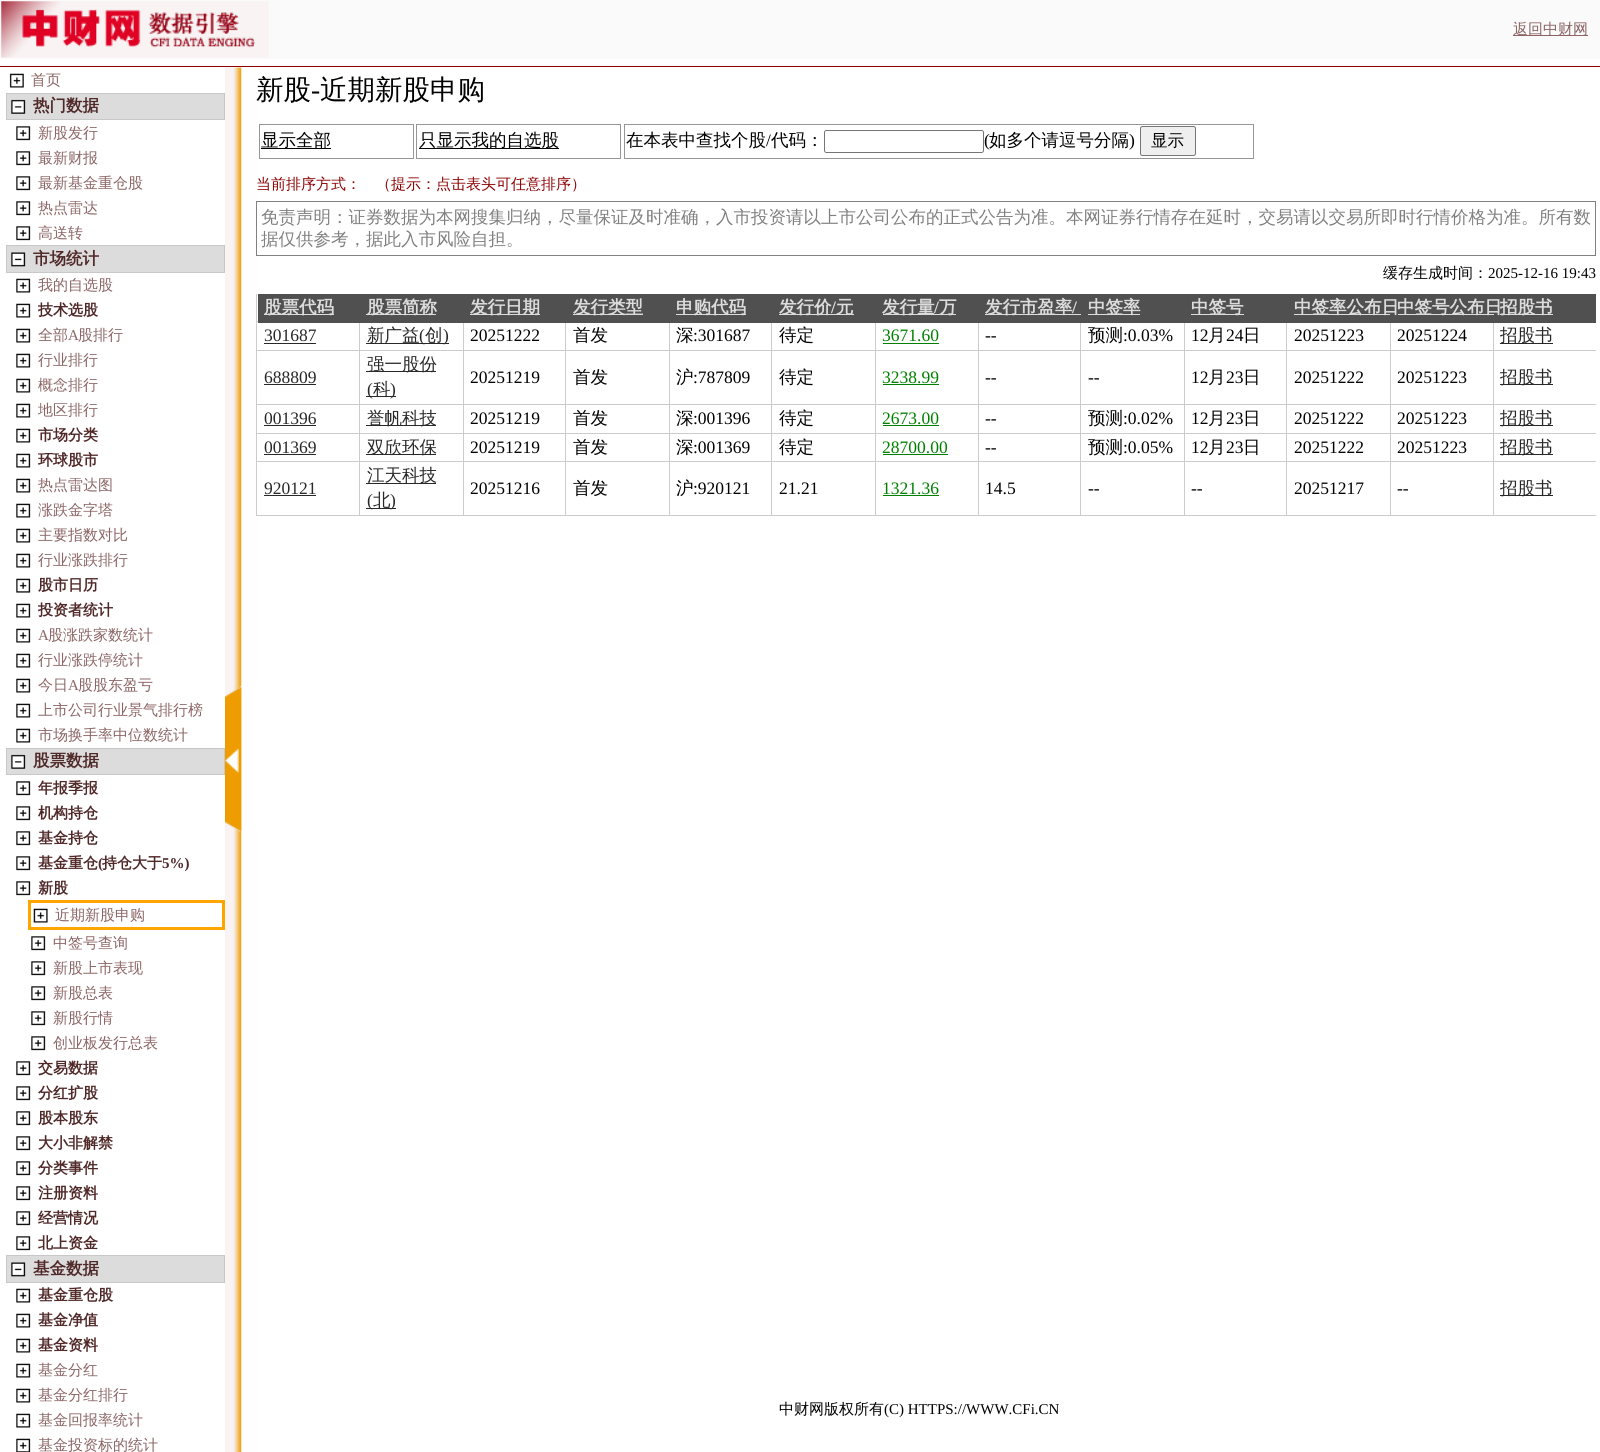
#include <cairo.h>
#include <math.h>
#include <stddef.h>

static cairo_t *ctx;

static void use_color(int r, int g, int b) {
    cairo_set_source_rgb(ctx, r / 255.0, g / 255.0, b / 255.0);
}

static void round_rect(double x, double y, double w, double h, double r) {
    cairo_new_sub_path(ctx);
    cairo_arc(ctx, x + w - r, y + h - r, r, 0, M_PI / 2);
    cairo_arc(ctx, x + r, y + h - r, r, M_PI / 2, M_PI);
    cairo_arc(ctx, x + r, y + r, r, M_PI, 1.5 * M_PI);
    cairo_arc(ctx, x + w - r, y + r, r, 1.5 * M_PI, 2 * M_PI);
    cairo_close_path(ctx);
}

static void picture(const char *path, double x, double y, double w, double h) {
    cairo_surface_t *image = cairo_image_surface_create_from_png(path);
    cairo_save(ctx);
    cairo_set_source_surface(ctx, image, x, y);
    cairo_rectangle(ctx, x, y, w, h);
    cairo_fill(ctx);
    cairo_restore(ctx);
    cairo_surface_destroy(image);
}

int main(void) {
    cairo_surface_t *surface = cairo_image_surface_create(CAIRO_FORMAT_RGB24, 1600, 1452);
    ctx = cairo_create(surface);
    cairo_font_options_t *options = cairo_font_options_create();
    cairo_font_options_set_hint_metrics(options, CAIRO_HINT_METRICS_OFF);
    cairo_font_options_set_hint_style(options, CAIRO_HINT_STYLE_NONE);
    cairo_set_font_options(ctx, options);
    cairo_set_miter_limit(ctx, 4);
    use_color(255, 255, 255);
    cairo_paint(ctx);
    use_color(250, 250, 250);
    cairo_rectangle(ctx, 0, 0, 1600, 59);
    cairo_fill(ctx);
    picture("img1.png", 1, 1, 268, 57);
    use_color(140, 100, 100);
    cairo_rectangle(ctx, 1513, 35, 75, 1);
    cairo_fill(ctx);
    cairo_select_font_face(ctx, "WenQuanYi Zen Hei Medium", CAIRO_FONT_SLANT_NORMAL, CAIRO_FONT_WEIGHT_NORMAL);
    cairo_set_font_size(ctx, 15);
    cairo_move_to(ctx, 1513, 34);
    cairo_show_text(ctx, "返回中财网");
    use_color(139, 0, 0);
    cairo_rectangle(ctx, 0, 66, 1600, 1);
    cairo_fill(ctx);
    picture("img2.png", 9, 73, 15, 15);
    use_color(140, 100, 100);
    cairo_move_to(ctx, 31, 85);
    cairo_show_text(ctx, "首页");
    use_color(220, 220, 220);
    cairo_rectangle(ctx, 7, 94, 217, 25);
    cairo_fill(ctx);
    picture("img3.png", 11, 99, 15, 15);
    cairo_rectangle(ctx, 6.5, 93.5, 218, 26);
    use_color(200, 200, 200);
    cairo_set_line_width(ctx, 1);
    cairo_stroke(ctx);
    cairo_select_font_face(ctx, "WenQuanYi Zen Hei", CAIRO_FONT_SLANT_NORMAL, CAIRO_FONT_WEIGHT_BOLD);
    cairo_set_font_size(ctx, 16.5);
    use_color(80, 40, 40);
    cairo_move_to(ctx, 33, 111);
    cairo_show_text(ctx, "热门数据");
    picture("img4.png", 16, 126, 15, 15);
    cairo_select_font_face(ctx, "WenQuanYi Zen Hei Medium", CAIRO_FONT_SLANT_NORMAL, CAIRO_FONT_WEIGHT_NORMAL);
    cairo_set_font_size(ctx, 15);
    use_color(140, 100, 100);
    cairo_move_to(ctx, 38, 138);
    cairo_show_text(ctx, "新股发行");
    picture("img4.png", 16, 151, 15, 15);
    cairo_move_to(ctx, 38, 163);
    cairo_show_text(ctx, "最新财报");
    picture("img4.png", 16, 176, 15, 15);
    cairo_move_to(ctx, 38, 188);
    cairo_show_text(ctx, "最新基金重仓股");
    picture("img4.png", 16, 201, 15, 15);
    cairo_move_to(ctx, 38, 213);
    cairo_show_text(ctx, "热点雷达");
    picture("img4.png", 16, 226, 15, 15);
    cairo_move_to(ctx, 38, 238);
    cairo_show_text(ctx, "高送转");
    use_color(220, 220, 220);
    cairo_rectangle(ctx, 7, 246, 217, 26);
    cairo_fill(ctx);
    picture("img5.png", 11, 252, 15, 15);
    cairo_rectangle(ctx, 6.5, 245.5, 218, 27);
    use_color(200, 200, 200);
    cairo_stroke(ctx);
    cairo_select_font_face(ctx, "WenQuanYi Zen Hei", CAIRO_FONT_SLANT_NORMAL, CAIRO_FONT_WEIGHT_BOLD);
    cairo_set_font_size(ctx, 16.5);
    use_color(80, 40, 40);
    cairo_move_to(ctx, 33, 264);
    cairo_show_text(ctx, "市场统计");
    picture("img6.png", 16, 278, 15, 15);
    cairo_select_font_face(ctx, "WenQuanYi Zen Hei Medium", CAIRO_FONT_SLANT_NORMAL, CAIRO_FONT_WEIGHT_NORMAL);
    cairo_set_font_size(ctx, 15);
    use_color(140, 100, 100);
    cairo_move_to(ctx, 38, 290);
    cairo_show_text(ctx, "我的自选股");
    picture("img6.png", 16, 303, 15, 15);
    cairo_select_font_face(ctx, "WenQuanYi Zen Hei", CAIRO_FONT_SLANT_NORMAL, CAIRO_FONT_WEIGHT_BOLD);
    use_color(80, 40, 40);
    cairo_move_to(ctx, 38, 315);
    cairo_show_text(ctx, "技术选股");
    picture("img6.png", 16, 328, 15, 15);
    cairo_select_font_face(ctx, "WenQuanYi Zen Hei Medium", CAIRO_FONT_SLANT_NORMAL, CAIRO_FONT_WEIGHT_NORMAL);
    use_color(140, 100, 100);
    cairo_move_to(ctx, 38, 340);
    cairo_show_text(ctx, "全部");
    cairo_select_font_face(ctx, "Liberation Serif", CAIRO_FONT_SLANT_NORMAL, CAIRO_FONT_WEIGHT_NORMAL);
    cairo_move_to(ctx, 68, 340);
    cairo_show_text(ctx, "A");
    cairo_select_font_face(ctx, "WenQuanYi Zen Hei Medium", CAIRO_FONT_SLANT_NORMAL, CAIRO_FONT_WEIGHT_NORMAL);
    cairo_move_to(ctx, 78, 340);
    cairo_show_text(ctx, "股排行");
    picture("img6.png", 16, 353, 15, 15);
    cairo_move_to(ctx, 38, 365);
    cairo_show_text(ctx, "行业排行");
    picture("img6.png", 16, 378, 15, 15);
    cairo_move_to(ctx, 38, 390);
    cairo_show_text(ctx, "概念排行");
    picture("img6.png", 16, 403, 15, 15);
    cairo_move_to(ctx, 38, 415);
    cairo_show_text(ctx, "地区排行");
    picture("img6.png", 16, 428, 15, 15);
    cairo_select_font_face(ctx, "WenQuanYi Zen Hei", CAIRO_FONT_SLANT_NORMAL, CAIRO_FONT_WEIGHT_BOLD);
    use_color(80, 40, 40);
    cairo_move_to(ctx, 38, 440);
    cairo_show_text(ctx, "市场分类");
    picture("img6.png", 16, 453, 15, 15);
    cairo_move_to(ctx, 38, 465);
    cairo_show_text(ctx, "环球股市");
    picture("img6.png", 16, 478, 15, 15);
    cairo_select_font_face(ctx, "WenQuanYi Zen Hei Medium", CAIRO_FONT_SLANT_NORMAL, CAIRO_FONT_WEIGHT_NORMAL);
    use_color(140, 100, 100);
    cairo_move_to(ctx, 38, 490);
    cairo_show_text(ctx, "热点雷达图");
    picture("img6.png", 16, 503, 15, 15);
    cairo_move_to(ctx, 38, 515);
    cairo_show_text(ctx, "涨跌金字塔");
    picture("img6.png", 16, 528, 15, 15);
    cairo_move_to(ctx, 38, 540);
    cairo_show_text(ctx, "主要指数对比");
    picture("img6.png", 16, 553, 15, 15);
    cairo_move_to(ctx, 38, 565);
    cairo_show_text(ctx, "行业涨跌排行");
    picture("img7.png", 16, 578, 15, 15);
    cairo_select_font_face(ctx, "WenQuanYi Zen Hei", CAIRO_FONT_SLANT_NORMAL, CAIRO_FONT_WEIGHT_BOLD);
    use_color(80, 40, 40);
    cairo_move_to(ctx, 38, 590);
    cairo_show_text(ctx, "股市日历");
    picture("img6.png", 16, 603, 15, 15);
    cairo_move_to(ctx, 38, 615);
    cairo_show_text(ctx, "投资者统计");
    picture("img6.png", 16, 628, 15, 15);
    cairo_select_font_face(ctx, "Liberation Serif", CAIRO_FONT_SLANT_NORMAL, CAIRO_FONT_WEIGHT_NORMAL);
    use_color(140, 100, 100);
    cairo_move_to(ctx, 38, 640);
    cairo_show_text(ctx, "A");
    cairo_select_font_face(ctx, "WenQuanYi Zen Hei Medium", CAIRO_FONT_SLANT_NORMAL, CAIRO_FONT_WEIGHT_NORMAL);
    cairo_move_to(ctx, 48, 640);
    cairo_show_text(ctx, "股涨跌家数统计");
    picture("img6.png", 16, 653, 15, 15);
    cairo_move_to(ctx, 38, 665);
    cairo_show_text(ctx, "行业涨跌停统计");
    picture("img6.png", 16, 678, 15, 15);
    cairo_move_to(ctx, 38, 690);
    cairo_show_text(ctx, "今日");
    cairo_select_font_face(ctx, "Liberation Serif", CAIRO_FONT_SLANT_NORMAL, CAIRO_FONT_WEIGHT_NORMAL);
    cairo_move_to(ctx, 68, 690);
    cairo_show_text(ctx, "A");
    cairo_select_font_face(ctx, "WenQuanYi Zen Hei Medium", CAIRO_FONT_SLANT_NORMAL, CAIRO_FONT_WEIGHT_NORMAL);
    cairo_move_to(ctx, 78, 690);
    cairo_show_text(ctx, "股股东盈亏");
    picture("img6.png", 16, 703, 15, 15);
    cairo_move_to(ctx, 38, 715);
    cairo_show_text(ctx, "上市公司行业景气排行榜");
    picture("img6.png", 16, 728, 15, 15);
    cairo_move_to(ctx, 38, 740);
    cairo_show_text(ctx, "市场换手率中位数统计");
    use_color(220, 220, 220);
    cairo_rectangle(ctx, 7, 749, 217, 25);
    cairo_fill(ctx);
    picture("img3.png", 11, 754, 15, 15);
    cairo_rectangle(ctx, 6.5, 748.5, 218, 26);
    use_color(200, 200, 200);
    cairo_stroke(ctx);
    cairo_select_font_face(ctx, "WenQuanYi Zen Hei", CAIRO_FONT_SLANT_NORMAL, CAIRO_FONT_WEIGHT_BOLD);
    cairo_set_font_size(ctx, 16.5);
    use_color(80, 40, 40);
    cairo_move_to(ctx, 33, 766);
    cairo_show_text(ctx, "股票数据");
    picture("img8.png", 16, 781, 15, 15);
    cairo_set_font_size(ctx, 15);
    cairo_move_to(ctx, 38, 793);
    cairo_show_text(ctx, "年报季报");
    picture("img4.png", 16, 806, 15, 15);
    cairo_move_to(ctx, 38, 818);
    cairo_show_text(ctx, "机构持仓");
    picture("img4.png", 16, 831, 15, 15);
    cairo_move_to(ctx, 38, 843);
    cairo_show_text(ctx, "基金持仓");
    picture("img4.png", 16, 856, 15, 15);
    cairo_move_to(ctx, 38, 868);
    cairo_show_text(ctx, "基金重仓");
    cairo_select_font_face(ctx, "Liberation Serif", CAIRO_FONT_SLANT_NORMAL, CAIRO_FONT_WEIGHT_BOLD);
    cairo_move_to(ctx, 98, 868);
    cairo_show_text(ctx, "(");
    cairo_select_font_face(ctx, "WenQuanYi Zen Hei", CAIRO_FONT_SLANT_NORMAL, CAIRO_FONT_WEIGHT_BOLD);
    cairo_move_to(ctx, 102, 868);
    cairo_show_text(ctx, "持仓大于");
    cairo_select_font_face(ctx, "Liberation Serif", CAIRO_FONT_SLANT_NORMAL, CAIRO_FONT_WEIGHT_BOLD);
    cairo_move_to(ctx, 162, 868);
    cairo_show_text(ctx, "5%)");
    picture("img4.png", 16, 881, 15, 15);
    cairo_select_font_face(ctx, "WenQuanYi Zen Hei", CAIRO_FONT_SLANT_NORMAL, CAIRO_FONT_WEIGHT_BOLD);
    cairo_move_to(ctx, 38, 893);
    cairo_show_text(ctx, "新股");
    picture("img9.png", 33, 908, 15, 15);
    cairo_rectangle(ctx, 29.5, 901.5, 194, 27);
    use_color(255, 165, 0);
    cairo_set_line_width(ctx, 3);
    cairo_stroke(ctx);
    cairo_select_font_face(ctx, "WenQuanYi Zen Hei Medium", CAIRO_FONT_SLANT_NORMAL, CAIRO_FONT_WEIGHT_NORMAL);
    use_color(140, 100, 100);
    cairo_move_to(ctx, 55, 920);
    cairo_show_text(ctx, "近期新股申购");
    picture("img4.png", 31, 936, 15, 15);
    cairo_move_to(ctx, 53, 948);
    cairo_show_text(ctx, "中签号查询");
    picture("img4.png", 31, 961, 15, 15);
    cairo_move_to(ctx, 53, 973);
    cairo_show_text(ctx, "新股上市表现");
    picture("img4.png", 31, 986, 15, 15);
    cairo_move_to(ctx, 53, 998);
    cairo_show_text(ctx, "新股总表");
    picture("img4.png", 31, 1011, 15, 15);
    cairo_move_to(ctx, 53, 1023);
    cairo_show_text(ctx, "新股行情");
    picture("img4.png", 31, 1036, 15, 15);
    cairo_move_to(ctx, 53, 1048);
    cairo_show_text(ctx, "创业板发行总表");
    picture("img4.png", 16, 1061, 15, 15);
    cairo_select_font_face(ctx, "WenQuanYi Zen Hei", CAIRO_FONT_SLANT_NORMAL, CAIRO_FONT_WEIGHT_BOLD);
    use_color(80, 40, 40);
    cairo_move_to(ctx, 38, 1073);
    cairo_show_text(ctx, "交易数据");
    picture("img4.png", 16, 1086, 15, 15);
    cairo_move_to(ctx, 38, 1098);
    cairo_show_text(ctx, "分红扩股");
    picture("img4.png", 16, 1111, 15, 15);
    cairo_move_to(ctx, 38, 1123);
    cairo_show_text(ctx, "股本股东");
    picture("img4.png", 16, 1136, 15, 15);
    cairo_move_to(ctx, 38, 1148);
    cairo_show_text(ctx, "大小非解禁");
    picture("img4.png", 16, 1161, 15, 15);
    cairo_move_to(ctx, 38, 1173);
    cairo_show_text(ctx, "分类事件");
    picture("img4.png", 16, 1186, 15, 15);
    cairo_move_to(ctx, 38, 1198);
    cairo_show_text(ctx, "注册资料");
    picture("img4.png", 16, 1211, 15, 15);
    cairo_move_to(ctx, 38, 1223);
    cairo_show_text(ctx, "经营情况");
    picture("img4.png", 16, 1236, 15, 15);
    cairo_move_to(ctx, 38, 1248);
    cairo_show_text(ctx, "北上资金");
    use_color(220, 220, 220);
    cairo_rectangle(ctx, 7, 1256, 217, 26);
    cairo_fill(ctx);
    picture("img5.png", 11, 1262, 15, 15);
    cairo_rectangle(ctx, 6.5, 1255.5, 218, 27);
    use_color(200, 200, 200);
    cairo_set_line_width(ctx, 1);
    cairo_stroke(ctx);
    cairo_set_font_size(ctx, 16.5);
    use_color(80, 40, 40);
    cairo_move_to(ctx, 33, 1274);
    cairo_show_text(ctx, "基金数据");
    picture("img6.png", 16, 1288, 15, 15);
    cairo_set_font_size(ctx, 15);
    cairo_move_to(ctx, 38, 1300);
    cairo_show_text(ctx, "基金重仓股");
    picture("img6.png", 16, 1313, 15, 15);
    cairo_move_to(ctx, 38, 1325);
    cairo_show_text(ctx, "基金净值");
    picture("img6.png", 16, 1338, 15, 15);
    cairo_move_to(ctx, 38, 1350);
    cairo_show_text(ctx, "基金资料");
    picture("img6.png", 16, 1363, 15, 15);
    cairo_select_font_face(ctx, "WenQuanYi Zen Hei Medium", CAIRO_FONT_SLANT_NORMAL, CAIRO_FONT_WEIGHT_NORMAL);
    use_color(140, 100, 100);
    cairo_move_to(ctx, 38, 1375);
    cairo_show_text(ctx, "基金分红");
    picture("img6.png", 16, 1388, 15, 15);
    cairo_move_to(ctx, 38, 1400);
    cairo_show_text(ctx, "基金分红排行");
    picture("img6.png", 16, 1413, 15, 15);
    cairo_move_to(ctx, 38, 1425);
    cairo_show_text(ctx, "基金回报率统计");
    picture("img10.png", 16, 1438, 15, 14);
    cairo_move_to(ctx, 38, 1450);
    cairo_show_text(ctx, "基金投资标的统计");
    picture("img11.png", 225, 67, 17, 1385);
    picture("img12.png", 225, 686, 17, 146);
    cairo_set_font_size(ctx, 27.5);
    use_color(0, 0, 0);
    cairo_move_to(ctx, 256, 99);
    cairo_show_text(ctx, "新股");
    cairo_select_font_face(ctx, "Liberation Serif", CAIRO_FONT_SLANT_NORMAL, CAIRO_FONT_WEIGHT_NORMAL);
    cairo_move_to(ctx, 311, 99);
    cairo_show_text(ctx, "-");
    cairo_select_font_face(ctx, "WenQuanYi Zen Hei Medium", CAIRO_FONT_SLANT_NORMAL, CAIRO_FONT_WEIGHT_NORMAL);
    cairo_move_to(ctx, 320, 99);
    cairo_show_text(ctx, "近期新股申购");
    cairo_rectangle(ctx, 259.5, 124.5, 154, 34);
    use_color(150, 150, 150);
    cairo_stroke(ctx);
    use_color(0, 0, 0);
    cairo_rectangle(ctx, 261, 148, 70, 1);
    cairo_fill(ctx);
    cairo_set_font_size(ctx, 17.5);
    cairo_move_to(ctx, 261, 146);
    cairo_show_text(ctx, "显示全部");
    cairo_rectangle(ctx, 416.5, 124.5, 204, 34);
    use_color(150, 150, 150);
    cairo_stroke(ctx);
    use_color(0, 0, 0);
    cairo_rectangle(ctx, 419, 148, 140, 1);
    cairo_fill(ctx);
    cairo_move_to(ctx, 419, 146);
    cairo_show_text(ctx, "只显示我的自选股");
    cairo_rectangle(ctx, 624.5, 124.5, 629, 34);
    use_color(150, 150, 150);
    cairo_stroke(ctx);
    use_color(0, 0, 0);
    cairo_move_to(ctx, 626, 146);
    cairo_show_text(ctx, "在本表中查找个股");
    cairo_select_font_face(ctx, "Liberation Serif", CAIRO_FONT_SLANT_NORMAL, CAIRO_FONT_WEIGHT_NORMAL);
    cairo_move_to(ctx, 766, 146);
    cairo_show_text(ctx, "/");
    cairo_select_font_face(ctx, "WenQuanYi Zen Hei Medium", CAIRO_FONT_SLANT_NORMAL, CAIRO_FONT_WEIGHT_NORMAL);
    cairo_move_to(ctx, 771, 146);
    cairo_show_text(ctx, "代码：");
    round_rect(824.5, 130.5, 159, 22, 2);
    use_color(118, 118, 118);
    cairo_stroke(ctx);
    cairo_select_font_face(ctx, "Liberation Serif", CAIRO_FONT_SLANT_NORMAL, CAIRO_FONT_WEIGHT_NORMAL);
    use_color(0, 0, 0);
    cairo_move_to(ctx, 984, 146);
    cairo_show_text(ctx, "(");
    cairo_select_font_face(ctx, "WenQuanYi Zen Hei Medium", CAIRO_FONT_SLANT_NORMAL, CAIRO_FONT_WEIGHT_NORMAL);
    cairo_move_to(ctx, 989, 146);
    cairo_show_text(ctx, "如多个请逗号分隔");
    cairo_select_font_face(ctx, "Liberation Serif", CAIRO_FONT_SLANT_NORMAL, CAIRO_FONT_WEIGHT_NORMAL);
    cairo_move_to(ctx, 1129, 146);
    cairo_show_text(ctx, ")");
    use_color(239, 239, 239);
    round_rect(1140.5, 126.5, 55, 29, 2);
    cairo_fill_preserve(ctx);
    use_color(118, 118, 118);
    cairo_stroke(ctx);
    cairo_select_font_face(ctx, "WenQuanYi Zen Hei Medium", CAIRO_FONT_SLANT_NORMAL, CAIRO_FONT_WEIGHT_NORMAL);
    cairo_set_font_size(ctx, 16.5);
    use_color(0, 0, 0);
    cairo_move_to(ctx, 1151, 146);
    cairo_show_text(ctx, "显示");
    cairo_set_font_size(ctx, 15);
    use_color(139, 0, 0);
    cairo_move_to(ctx, 256, 189);
    cairo_show_text(ctx, "当前排序方式：　（提示：点击表头可任意排序）");
    cairo_rectangle(ctx, 256.5, 201.5, 1339, 54);
    use_color(128, 128, 128);
    cairo_stroke(ctx);
    cairo_set_font_size(ctx, 17.5);
    cairo_move_to(ctx, 261, 223);
    cairo_show_text(ctx, "免责声明：证券数据为本网搜集归纳，尽量保证及时准确，入市投资请以上市公司公布的正式公告为准。本网证券行情存在延时，交易请以交易所即时行情价格为准。所有数");
    cairo_move_to(ctx, 261, 245);
    cairo_show_text(ctx, "据仅供参考，据此入市风险自担。");
    cairo_set_font_size(ctx, 15);
    use_color(0, 0, 0);
    cairo_move_to(ctx, 1383, 278);
    cairo_show_text(ctx, "缓存生成时间：");
    cairo_select_font_face(ctx, "Liberation Serif", CAIRO_FONT_SLANT_NORMAL, CAIRO_FONT_WEIGHT_NORMAL);
    cairo_move_to(ctx, 1488, 278);
    cairo_show_text(ctx, "2025-12-16 19:43");
    use_color(204, 204, 204);
    cairo_rectangle(ctx, 1493, 515, 103, 1);
    cairo_fill(ctx);
    cairo_rectangle(ctx, 1493, 461, 1, 55);
    cairo_fill(ctx);
    cairo_rectangle(ctx, 1493, 461, 103, 1);
    cairo_fill(ctx);
    cairo_rectangle(ctx, 1493, 433, 1, 30);
    cairo_fill(ctx);
    cairo_rectangle(ctx, 1493, 433, 103, 1);
    cairo_fill(ctx);
    cairo_rectangle(ctx, 1493, 404, 1, 30);
    cairo_fill(ctx);
    cairo_rectangle(ctx, 1493, 404, 103, 1);
    cairo_fill(ctx);
    cairo_rectangle(ctx, 1493, 350, 1, 55);
    cairo_fill(ctx);
    cairo_rectangle(ctx, 1493, 350, 103, 1);
    cairo_fill(ctx);
    cairo_rectangle(ctx, 1493, 321, 1, 30);
    cairo_fill(ctx);
    cairo_rectangle(ctx, 1390, 515, 104, 1);
    cairo_fill(ctx);
    cairo_rectangle(ctx, 1390, 461, 1, 55);
    cairo_fill(ctx);
    cairo_rectangle(ctx, 1390, 461, 104, 1);
    cairo_fill(ctx);
    cairo_rectangle(ctx, 1390, 433, 1, 30);
    cairo_fill(ctx);
    cairo_rectangle(ctx, 1390, 433, 104, 1);
    cairo_fill(ctx);
    cairo_rectangle(ctx, 1390, 404, 1, 30);
    cairo_fill(ctx);
    cairo_rectangle(ctx, 1390, 404, 104, 1);
    cairo_fill(ctx);
    cairo_rectangle(ctx, 1390, 350, 1, 55);
    cairo_fill(ctx);
    cairo_rectangle(ctx, 1390, 350, 104, 1);
    cairo_fill(ctx);
    cairo_rectangle(ctx, 1390, 321, 1, 30);
    cairo_fill(ctx);
    cairo_rectangle(ctx, 1286, 515, 105, 1);
    cairo_fill(ctx);
    cairo_rectangle(ctx, 1286, 461, 1, 55);
    cairo_fill(ctx);
    cairo_rectangle(ctx, 1286, 461, 105, 1);
    cairo_fill(ctx);
    cairo_rectangle(ctx, 1286, 433, 1, 30);
    cairo_fill(ctx);
    cairo_rectangle(ctx, 1286, 433, 105, 1);
    cairo_fill(ctx);
    cairo_rectangle(ctx, 1286, 404, 1, 30);
    cairo_fill(ctx);
    cairo_rectangle(ctx, 1286, 404, 105, 1);
    cairo_fill(ctx);
    cairo_rectangle(ctx, 1286, 350, 1, 55);
    cairo_fill(ctx);
    cairo_rectangle(ctx, 1286, 350, 105, 1);
    cairo_fill(ctx);
    cairo_rectangle(ctx, 1286, 321, 1, 30);
    cairo_fill(ctx);
    cairo_rectangle(ctx, 1184, 515, 104, 1);
    cairo_fill(ctx);
    cairo_rectangle(ctx, 1184, 461, 1, 55);
    cairo_fill(ctx);
    cairo_rectangle(ctx, 1184, 461, 104, 1);
    cairo_fill(ctx);
    cairo_rectangle(ctx, 1184, 433, 1, 30);
    cairo_fill(ctx);
    cairo_rectangle(ctx, 1184, 433, 104, 1);
    cairo_fill(ctx);
    cairo_rectangle(ctx, 1184, 404, 1, 30);
    cairo_fill(ctx);
    cairo_rectangle(ctx, 1184, 404, 104, 1);
    cairo_fill(ctx);
    cairo_rectangle(ctx, 1184, 350, 1, 55);
    cairo_fill(ctx);
    cairo_rectangle(ctx, 1184, 350, 104, 1);
    cairo_fill(ctx);
    cairo_rectangle(ctx, 1184, 321, 1, 30);
    cairo_fill(ctx);
    cairo_rectangle(ctx, 1080, 515, 105, 1);
    cairo_fill(ctx);
    cairo_rectangle(ctx, 1080, 461, 1, 55);
    cairo_fill(ctx);
    cairo_rectangle(ctx, 1080, 461, 105, 1);
    cairo_fill(ctx);
    cairo_rectangle(ctx, 1080, 433, 1, 30);
    cairo_fill(ctx);
    cairo_rectangle(ctx, 1080, 433, 105, 1);
    cairo_fill(ctx);
    cairo_rectangle(ctx, 1080, 404, 1, 30);
    cairo_fill(ctx);
    cairo_rectangle(ctx, 1080, 404, 105, 1);
    cairo_fill(ctx);
    cairo_rectangle(ctx, 1080, 350, 1, 55);
    cairo_fill(ctx);
    cairo_rectangle(ctx, 1080, 350, 105, 1);
    cairo_fill(ctx);
    cairo_rectangle(ctx, 1080, 321, 1, 30);
    cairo_fill(ctx);
    cairo_rectangle(ctx, 978, 515, 103, 1);
    cairo_fill(ctx);
    cairo_rectangle(ctx, 978, 461, 1, 55);
    cairo_fill(ctx);
    cairo_rectangle(ctx, 978, 461, 103, 1);
    cairo_fill(ctx);
    cairo_rectangle(ctx, 978, 433, 1, 30);
    cairo_fill(ctx);
    cairo_rectangle(ctx, 978, 433, 103, 1);
    cairo_fill(ctx);
    cairo_rectangle(ctx, 978, 404, 1, 30);
    cairo_fill(ctx);
    cairo_rectangle(ctx, 978, 404, 103, 1);
    cairo_fill(ctx);
    cairo_rectangle(ctx, 978, 350, 1, 55);
    cairo_fill(ctx);
    cairo_rectangle(ctx, 978, 350, 103, 1);
    cairo_fill(ctx);
    cairo_rectangle(ctx, 978, 321, 1, 30);
    cairo_fill(ctx);
    cairo_rectangle(ctx, 875, 515, 104, 1);
    cairo_fill(ctx);
    cairo_rectangle(ctx, 875, 461, 1, 55);
    cairo_fill(ctx);
    cairo_rectangle(ctx, 875, 461, 104, 1);
    cairo_fill(ctx);
    cairo_rectangle(ctx, 875, 433, 1, 30);
    cairo_fill(ctx);
    cairo_rectangle(ctx, 875, 433, 104, 1);
    cairo_fill(ctx);
    cairo_rectangle(ctx, 875, 404, 1, 30);
    cairo_fill(ctx);
    cairo_rectangle(ctx, 875, 404, 104, 1);
    cairo_fill(ctx);
    cairo_rectangle(ctx, 875, 350, 1, 55);
    cairo_fill(ctx);
    cairo_rectangle(ctx, 875, 350, 104, 1);
    cairo_fill(ctx);
    cairo_rectangle(ctx, 875, 321, 1, 30);
    cairo_fill(ctx);
    cairo_rectangle(ctx, 771, 515, 105, 1);
    cairo_fill(ctx);
    cairo_rectangle(ctx, 771, 461, 1, 55);
    cairo_fill(ctx);
    cairo_rectangle(ctx, 771, 461, 105, 1);
    cairo_fill(ctx);
    cairo_rectangle(ctx, 771, 433, 1, 30);
    cairo_fill(ctx);
    cairo_rectangle(ctx, 771, 433, 105, 1);
    cairo_fill(ctx);
    cairo_rectangle(ctx, 771, 404, 1, 30);
    cairo_fill(ctx);
    cairo_rectangle(ctx, 771, 404, 105, 1);
    cairo_fill(ctx);
    cairo_rectangle(ctx, 771, 350, 1, 55);
    cairo_fill(ctx);
    cairo_rectangle(ctx, 771, 350, 105, 1);
    cairo_fill(ctx);
    cairo_rectangle(ctx, 771, 321, 1, 30);
    cairo_fill(ctx);
    cairo_rectangle(ctx, 669, 515, 104, 1);
    cairo_fill(ctx);
    cairo_rectangle(ctx, 669, 461, 1, 55);
    cairo_fill(ctx);
    cairo_rectangle(ctx, 669, 461, 104, 1);
    cairo_fill(ctx);
    cairo_rectangle(ctx, 669, 433, 1, 30);
    cairo_fill(ctx);
    cairo_rectangle(ctx, 669, 433, 104, 1);
    cairo_fill(ctx);
    cairo_rectangle(ctx, 669, 404, 1, 30);
    cairo_fill(ctx);
    cairo_rectangle(ctx, 669, 404, 104, 1);
    cairo_fill(ctx);
    cairo_rectangle(ctx, 669, 350, 1, 55);
    cairo_fill(ctx);
    cairo_rectangle(ctx, 669, 350, 104, 1);
    cairo_fill(ctx);
    cairo_rectangle(ctx, 669, 321, 1, 30);
    cairo_fill(ctx);
    cairo_rectangle(ctx, 565, 515, 105, 1);
    cairo_fill(ctx);
    cairo_rectangle(ctx, 565, 461, 1, 55);
    cairo_fill(ctx);
    cairo_rectangle(ctx, 565, 461, 105, 1);
    cairo_fill(ctx);
    cairo_rectangle(ctx, 565, 433, 1, 30);
    cairo_fill(ctx);
    cairo_rectangle(ctx, 565, 433, 105, 1);
    cairo_fill(ctx);
    cairo_rectangle(ctx, 565, 404, 1, 30);
    cairo_fill(ctx);
    cairo_rectangle(ctx, 565, 404, 105, 1);
    cairo_fill(ctx);
    cairo_rectangle(ctx, 565, 350, 1, 55);
    cairo_fill(ctx);
    cairo_rectangle(ctx, 565, 350, 105, 1);
    cairo_fill(ctx);
    cairo_rectangle(ctx, 565, 321, 1, 30);
    cairo_fill(ctx);
    cairo_rectangle(ctx, 463, 515, 103, 1);
    cairo_fill(ctx);
    cairo_rectangle(ctx, 463, 461, 1, 55);
    cairo_fill(ctx);
    cairo_rectangle(ctx, 463, 461, 103, 1);
    cairo_fill(ctx);
    cairo_rectangle(ctx, 463, 433, 1, 30);
    cairo_fill(ctx);
    cairo_rectangle(ctx, 463, 433, 103, 1);
    cairo_fill(ctx);
    cairo_rectangle(ctx, 463, 404, 1, 30);
    cairo_fill(ctx);
    cairo_rectangle(ctx, 463, 404, 103, 1);
    cairo_fill(ctx);
    cairo_rectangle(ctx, 463, 350, 1, 55);
    cairo_fill(ctx);
    cairo_rectangle(ctx, 463, 350, 103, 1);
    cairo_fill(ctx);
    cairo_rectangle(ctx, 463, 321, 1, 30);
    cairo_fill(ctx);
    cairo_rectangle(ctx, 359, 515, 105, 1);
    cairo_fill(ctx);
    cairo_rectangle(ctx, 359, 461, 1, 55);
    cairo_fill(ctx);
    cairo_rectangle(ctx, 359, 461, 105, 1);
    cairo_fill(ctx);
    cairo_rectangle(ctx, 359, 433, 1, 30);
    cairo_fill(ctx);
    cairo_rectangle(ctx, 359, 433, 105, 1);
    cairo_fill(ctx);
    cairo_rectangle(ctx, 359, 404, 1, 30);
    cairo_fill(ctx);
    cairo_rectangle(ctx, 359, 404, 105, 1);
    cairo_fill(ctx);
    cairo_rectangle(ctx, 359, 350, 1, 55);
    cairo_fill(ctx);
    cairo_rectangle(ctx, 359, 350, 105, 1);
    cairo_fill(ctx);
    cairo_rectangle(ctx, 359, 321, 1, 30);
    cairo_fill(ctx);
    cairo_rectangle(ctx, 256, 515, 104, 1);
    cairo_fill(ctx);
    cairo_rectangle(ctx, 256, 461, 1, 55);
    cairo_fill(ctx);
    cairo_rectangle(ctx, 256, 461, 104, 1);
    cairo_fill(ctx);
    cairo_rectangle(ctx, 256, 433, 1, 30);
    cairo_fill(ctx);
    cairo_rectangle(ctx, 256, 433, 104, 1);
    cairo_fill(ctx);
    cairo_rectangle(ctx, 256, 404, 1, 30);
    cairo_fill(ctx);
    cairo_rectangle(ctx, 256, 404, 104, 1);
    cairo_fill(ctx);
    cairo_rectangle(ctx, 256, 350, 1, 55);
    cairo_fill(ctx);
    cairo_rectangle(ctx, 256, 350, 104, 1);
    cairo_fill(ctx);
    cairo_rectangle(ctx, 256, 321, 1, 30);
    cairo_fill(ctx);
    cairo_rectangle(ctx, 256, 321, 2, 1);
    cairo_fill(ctx);
    cairo_rectangle(ctx, 256, 294, 1, 29);
    cairo_fill(ctx);
    use_color(80, 80, 80);
    cairo_rectangle(ctx, 258, 294, 1338, 29);
    cairo_fill(ctx);
    use_color(220, 220, 220);
    cairo_rectangle(ctx, 264, 314, 70, 1);
    cairo_fill(ctx);
    cairo_select_font_face(ctx, "WenQuanYi Zen Hei", CAIRO_FONT_SLANT_NORMAL, CAIRO_FONT_WEIGHT_BOLD);
    cairo_set_font_size(ctx, 17.5);
    cairo_move_to(ctx, 264, 313);
    cairo_show_text(ctx, "股票代码");
    cairo_rectangle(ctx, 366, 314, 70, 1);
    cairo_fill(ctx);
    cairo_move_to(ctx, 367, 313);
    cairo_show_text(ctx, "股票简称");
    cairo_rectangle(ctx, 470, 314, 70, 1);
    cairo_fill(ctx);
    cairo_move_to(ctx, 470, 313);
    cairo_show_text(ctx, "发行日期");
    cairo_rectangle(ctx, 573, 314, 70, 1);
    cairo_fill(ctx);
    cairo_move_to(ctx, 573, 313);
    cairo_show_text(ctx, "发行类型");
    cairo_rectangle(ctx, 676, 314, 70, 1);
    cairo_fill(ctx);
    cairo_move_to(ctx, 676, 313);
    cairo_show_text(ctx, "申购代码");
    cairo_rectangle(ctx, 779, 314, 75, 1);
    cairo_fill(ctx);
    cairo_move_to(ctx, 779, 313);
    cairo_show_text(ctx, "发行价");
    cairo_select_font_face(ctx, "Liberation Serif", CAIRO_FONT_SLANT_NORMAL, CAIRO_FONT_WEIGHT_BOLD);
    cairo_move_to(ctx, 831, 313);
    cairo_show_text(ctx, "/");
    cairo_select_font_face(ctx, "WenQuanYi Zen Hei", CAIRO_FONT_SLANT_NORMAL, CAIRO_FONT_WEIGHT_BOLD);
    cairo_move_to(ctx, 836, 313);
    cairo_show_text(ctx, "元");
    cairo_rectangle(ctx, 883, 314, 73, 1);
    cairo_fill(ctx);
    cairo_move_to(ctx, 882, 313);
    cairo_show_text(ctx, "发行量");
    cairo_select_font_face(ctx, "Liberation Serif", CAIRO_FONT_SLANT_NORMAL, CAIRO_FONT_WEIGHT_BOLD);
    cairo_move_to(ctx, 934, 313);
    cairo_show_text(ctx, "/");
    cairo_select_font_face(ctx, "WenQuanYi Zen Hei", CAIRO_FONT_SLANT_NORMAL, CAIRO_FONT_WEIGHT_BOLD);
    cairo_move_to(ctx, 939, 313);
    cairo_show_text(ctx, "万");
    cairo_rectangle(ctx, 985, 314, 96, 1);
    cairo_fill(ctx);
    cairo_move_to(ctx, 985, 313);
    cairo_show_text(ctx, "发行市盈率");
    cairo_select_font_face(ctx, "Liberation Serif", CAIRO_FONT_SLANT_NORMAL, CAIRO_FONT_WEIGHT_BOLD);
    cairo_move_to(ctx, 1072, 313);
    cairo_show_text(ctx, "/");
    cairo_rectangle(ctx, 1088, 314, 52, 1);
    cairo_fill(ctx);
    cairo_select_font_face(ctx, "WenQuanYi Zen Hei", CAIRO_FONT_SLANT_NORMAL, CAIRO_FONT_WEIGHT_BOLD);
    cairo_move_to(ctx, 1088, 313);
    cairo_show_text(ctx, "中签率");
    cairo_rectangle(ctx, 1191, 314, 53, 1);
    cairo_fill(ctx);
    cairo_move_to(ctx, 1191, 313);
    cairo_show_text(ctx, "中签号");
    cairo_rectangle(ctx, 1294, 314, 96, 1);
    cairo_fill(ctx);
    cairo_move_to(ctx, 1294, 313);
    cairo_show_text(ctx, "中签率公布日");
    cairo_rectangle(ctx, 1398, 314, 96, 1);
    cairo_fill(ctx);
    cairo_move_to(ctx, 1397, 313);
    cairo_show_text(ctx, "中签号公布日");
    cairo_rectangle(ctx, 1500, 314, 53, 1);
    cairo_fill(ctx);
    cairo_move_to(ctx, 1500, 313);
    cairo_show_text(ctx, "招股书");
    cairo_select_font_face(ctx, "Liberation Serif", CAIRO_FONT_SLANT_NORMAL, CAIRO_FONT_WEIGHT_NORMAL);
    use_color(40, 40, 40);
    cairo_move_to(ctx, 264, 341);
    cairo_show_text(ctx, "301687");
    cairo_rectangle(ctx, 264, 343, 52, 1);
    cairo_fill(ctx);
    cairo_rectangle(ctx, 366, 343, 83, 1);
    cairo_fill(ctx);
    cairo_select_font_face(ctx, "WenQuanYi Zen Hei Medium", CAIRO_FONT_SLANT_NORMAL, CAIRO_FONT_WEIGHT_NORMAL);
    cairo_move_to(ctx, 367, 341);
    cairo_show_text(ctx, "新广益");
    cairo_select_font_face(ctx, "Liberation Serif", CAIRO_FONT_SLANT_NORMAL, CAIRO_FONT_WEIGHT_NORMAL);
    cairo_move_to(ctx, 419, 341);
    cairo_show_text(ctx, "(");
    cairo_select_font_face(ctx, "WenQuanYi Zen Hei Medium", CAIRO_FONT_SLANT_NORMAL, CAIRO_FONT_WEIGHT_NORMAL);
    cairo_move_to(ctx, 425, 341);
    cairo_show_text(ctx, "创");
    cairo_select_font_face(ctx, "Liberation Serif", CAIRO_FONT_SLANT_NORMAL, CAIRO_FONT_WEIGHT_NORMAL);
    cairo_move_to(ctx, 443, 341);
    cairo_show_text(ctx, ")");
    use_color(0, 0, 0);
    cairo_move_to(ctx, 470, 341);
    cairo_show_text(ctx, "20251222");
    cairo_select_font_face(ctx, "WenQuanYi Zen Hei Medium", CAIRO_FONT_SLANT_NORMAL, CAIRO_FONT_WEIGHT_NORMAL);
    cairo_move_to(ctx, 573, 341);
    cairo_show_text(ctx, "首发");
    cairo_move_to(ctx, 676, 341);
    cairo_show_text(ctx, "深");
    cairo_select_font_face(ctx, "Liberation Serif", CAIRO_FONT_SLANT_NORMAL, CAIRO_FONT_WEIGHT_NORMAL);
    cairo_move_to(ctx, 693, 341);
    cairo_show_text(ctx, ":301687");
    cairo_select_font_face(ctx, "WenQuanYi Zen Hei Medium", CAIRO_FONT_SLANT_NORMAL, CAIRO_FONT_WEIGHT_NORMAL);
    cairo_move_to(ctx, 779, 341);
    cairo_show_text(ctx, "待定");
    cairo_select_font_face(ctx, "Liberation Serif", CAIRO_FONT_SLANT_NORMAL, CAIRO_FONT_WEIGHT_NORMAL);
    use_color(0, 128, 0);
    cairo_move_to(ctx, 882, 341);
    cairo_show_text(ctx, "3671.60");
    cairo_rectangle(ctx, 883, 343, 56, 1);
    cairo_fill(ctx);
    use_color(0, 0, 0);
    cairo_move_to(ctx, 985, 341);
    cairo_show_text(ctx, "--");
    cairo_select_font_face(ctx, "WenQuanYi Zen Hei Medium", CAIRO_FONT_SLANT_NORMAL, CAIRO_FONT_WEIGHT_NORMAL);
    cairo_move_to(ctx, 1088, 341);
    cairo_show_text(ctx, "预测");
    cairo_select_font_face(ctx, "Liberation Serif", CAIRO_FONT_SLANT_NORMAL, CAIRO_FONT_WEIGHT_NORMAL);
    cairo_move_to(ctx, 1123, 341);
    cairo_show_text(ctx, ":0.03%");
    cairo_move_to(ctx, 1191, 341);
    cairo_show_text(ctx, "12");
    cairo_select_font_face(ctx, "WenQuanYi Zen Hei Medium", CAIRO_FONT_SLANT_NORMAL, CAIRO_FONT_WEIGHT_NORMAL);
    cairo_move_to(ctx, 1208, 341);
    cairo_show_text(ctx, "月");
    cairo_select_font_face(ctx, "Liberation Serif", CAIRO_FONT_SLANT_NORMAL, CAIRO_FONT_WEIGHT_NORMAL);
    cairo_move_to(ctx, 1226, 341);
    cairo_show_text(ctx, "24");
    cairo_select_font_face(ctx, "WenQuanYi Zen Hei Medium", CAIRO_FONT_SLANT_NORMAL, CAIRO_FONT_WEIGHT_NORMAL);
    cairo_move_to(ctx, 1243, 341);
    cairo_show_text(ctx, "日");
    cairo_select_font_face(ctx, "Liberation Serif", CAIRO_FONT_SLANT_NORMAL, CAIRO_FONT_WEIGHT_NORMAL);
    cairo_move_to(ctx, 1294, 341);
    cairo_show_text(ctx, "20251223");
    cairo_move_to(ctx, 1397, 341);
    cairo_show_text(ctx, "20251224");
    use_color(40, 40, 40);
    cairo_rectangle(ctx, 1500, 343, 53, 1);
    cairo_fill(ctx);
    cairo_select_font_face(ctx, "WenQuanYi Zen Hei Medium", CAIRO_FONT_SLANT_NORMAL, CAIRO_FONT_WEIGHT_NORMAL);
    cairo_move_to(ctx, 1500, 341);
    cairo_show_text(ctx, "招股书");
    cairo_select_font_face(ctx, "Liberation Serif", CAIRO_FONT_SLANT_NORMAL, CAIRO_FONT_WEIGHT_NORMAL);
    cairo_move_to(ctx, 264, 383);
    cairo_show_text(ctx, "688809");
    cairo_rectangle(ctx, 264, 384, 52, 1);
    cairo_fill(ctx);
    cairo_rectangle(ctx, 366, 371, 70, 1);
    cairo_fill(ctx);
    cairo_select_font_face(ctx, "WenQuanYi Zen Hei Medium", CAIRO_FONT_SLANT_NORMAL, CAIRO_FONT_WEIGHT_NORMAL);
    cairo_move_to(ctx, 367, 370);
    cairo_show_text(ctx, "强一股份");
    cairo_rectangle(ctx, 366, 396, 30, 1);
    cairo_fill(ctx);
    cairo_select_font_face(ctx, "Liberation Serif", CAIRO_FONT_SLANT_NORMAL, CAIRO_FONT_WEIGHT_NORMAL);
    cairo_move_to(ctx, 367, 395);
    cairo_show_text(ctx, "(");
    cairo_select_font_face(ctx, "WenQuanYi Zen Hei Medium", CAIRO_FONT_SLANT_NORMAL, CAIRO_FONT_WEIGHT_NORMAL);
    cairo_move_to(ctx, 373, 395);
    cairo_show_text(ctx, "科");
    cairo_select_font_face(ctx, "Liberation Serif", CAIRO_FONT_SLANT_NORMAL, CAIRO_FONT_WEIGHT_NORMAL);
    cairo_move_to(ctx, 390, 395);
    cairo_show_text(ctx, ")");
    use_color(0, 0, 0);
    cairo_move_to(ctx, 470, 383);
    cairo_show_text(ctx, "20251219");
    cairo_select_font_face(ctx, "WenQuanYi Zen Hei Medium", CAIRO_FONT_SLANT_NORMAL, CAIRO_FONT_WEIGHT_NORMAL);
    cairo_move_to(ctx, 573, 383);
    cairo_show_text(ctx, "首发");
    cairo_move_to(ctx, 676, 383);
    cairo_show_text(ctx, "沪");
    cairo_select_font_face(ctx, "Liberation Serif", CAIRO_FONT_SLANT_NORMAL, CAIRO_FONT_WEIGHT_NORMAL);
    cairo_move_to(ctx, 693, 383);
    cairo_show_text(ctx, ":787809");
    cairo_select_font_face(ctx, "WenQuanYi Zen Hei Medium", CAIRO_FONT_SLANT_NORMAL, CAIRO_FONT_WEIGHT_NORMAL);
    cairo_move_to(ctx, 779, 383);
    cairo_show_text(ctx, "待定");
    cairo_select_font_face(ctx, "Liberation Serif", CAIRO_FONT_SLANT_NORMAL, CAIRO_FONT_WEIGHT_NORMAL);
    use_color(0, 128, 0);
    cairo_move_to(ctx, 882, 383);
    cairo_show_text(ctx, "3238.99");
    cairo_rectangle(ctx, 883, 384, 56, 1);
    cairo_fill(ctx);
    use_color(0, 0, 0);
    cairo_move_to(ctx, 985, 383);
    cairo_show_text(ctx, "--");
    cairo_move_to(ctx, 1088, 383);
    cairo_show_text(ctx, "--");
    cairo_move_to(ctx, 1191, 383);
    cairo_show_text(ctx, "12");
    cairo_select_font_face(ctx, "WenQuanYi Zen Hei Medium", CAIRO_FONT_SLANT_NORMAL, CAIRO_FONT_WEIGHT_NORMAL);
    cairo_move_to(ctx, 1208, 383);
    cairo_show_text(ctx, "月");
    cairo_select_font_face(ctx, "Liberation Serif", CAIRO_FONT_SLANT_NORMAL, CAIRO_FONT_WEIGHT_NORMAL);
    cairo_move_to(ctx, 1226, 383);
    cairo_show_text(ctx, "23");
    cairo_select_font_face(ctx, "WenQuanYi Zen Hei Medium", CAIRO_FONT_SLANT_NORMAL, CAIRO_FONT_WEIGHT_NORMAL);
    cairo_move_to(ctx, 1243, 383);
    cairo_show_text(ctx, "日");
    cairo_select_font_face(ctx, "Liberation Serif", CAIRO_FONT_SLANT_NORMAL, CAIRO_FONT_WEIGHT_NORMAL);
    cairo_move_to(ctx, 1294, 383);
    cairo_show_text(ctx, "20251222");
    cairo_move_to(ctx, 1397, 383);
    cairo_show_text(ctx, "20251223");
    use_color(40, 40, 40);
    cairo_rectangle(ctx, 1500, 384, 53, 1);
    cairo_fill(ctx);
    cairo_select_font_face(ctx, "WenQuanYi Zen Hei Medium", CAIRO_FONT_SLANT_NORMAL, CAIRO_FONT_WEIGHT_NORMAL);
    cairo_move_to(ctx, 1500, 383);
    cairo_show_text(ctx, "招股书");
    cairo_select_font_face(ctx, "Liberation Serif", CAIRO_FONT_SLANT_NORMAL, CAIRO_FONT_WEIGHT_NORMAL);
    cairo_move_to(ctx, 264, 424);
    cairo_show_text(ctx, "001396");
    cairo_rectangle(ctx, 264, 425, 52, 1);
    cairo_fill(ctx);
    cairo_rectangle(ctx, 366, 425, 70, 1);
    cairo_fill(ctx);
    cairo_select_font_face(ctx, "WenQuanYi Zen Hei Medium", CAIRO_FONT_SLANT_NORMAL, CAIRO_FONT_WEIGHT_NORMAL);
    cairo_move_to(ctx, 367, 424);
    cairo_show_text(ctx, "誉帆科技");
    cairo_select_font_face(ctx, "Liberation Serif", CAIRO_FONT_SLANT_NORMAL, CAIRO_FONT_WEIGHT_NORMAL);
    use_color(0, 0, 0);
    cairo_move_to(ctx, 470, 424);
    cairo_show_text(ctx, "20251219");
    cairo_select_font_face(ctx, "WenQuanYi Zen Hei Medium", CAIRO_FONT_SLANT_NORMAL, CAIRO_FONT_WEIGHT_NORMAL);
    cairo_move_to(ctx, 573, 424);
    cairo_show_text(ctx, "首发");
    cairo_move_to(ctx, 676, 424);
    cairo_show_text(ctx, "深");
    cairo_select_font_face(ctx, "Liberation Serif", CAIRO_FONT_SLANT_NORMAL, CAIRO_FONT_WEIGHT_NORMAL);
    cairo_move_to(ctx, 693, 424);
    cairo_show_text(ctx, ":001396");
    cairo_select_font_face(ctx, "WenQuanYi Zen Hei Medium", CAIRO_FONT_SLANT_NORMAL, CAIRO_FONT_WEIGHT_NORMAL);
    cairo_move_to(ctx, 779, 424);
    cairo_show_text(ctx, "待定");
    cairo_select_font_face(ctx, "Liberation Serif", CAIRO_FONT_SLANT_NORMAL, CAIRO_FONT_WEIGHT_NORMAL);
    use_color(0, 128, 0);
    cairo_move_to(ctx, 882, 424);
    cairo_show_text(ctx, "2673.00");
    cairo_rectangle(ctx, 883, 425, 56, 1);
    cairo_fill(ctx);
    use_color(0, 0, 0);
    cairo_move_to(ctx, 985, 424);
    cairo_show_text(ctx, "--");
    cairo_select_font_face(ctx, "WenQuanYi Zen Hei Medium", CAIRO_FONT_SLANT_NORMAL, CAIRO_FONT_WEIGHT_NORMAL);
    cairo_move_to(ctx, 1088, 424);
    cairo_show_text(ctx, "预测");
    cairo_select_font_face(ctx, "Liberation Serif", CAIRO_FONT_SLANT_NORMAL, CAIRO_FONT_WEIGHT_NORMAL);
    cairo_move_to(ctx, 1123, 424);
    cairo_show_text(ctx, ":0.02%");
    cairo_move_to(ctx, 1191, 424);
    cairo_show_text(ctx, "12");
    cairo_select_font_face(ctx, "WenQuanYi Zen Hei Medium", CAIRO_FONT_SLANT_NORMAL, CAIRO_FONT_WEIGHT_NORMAL);
    cairo_move_to(ctx, 1208, 424);
    cairo_show_text(ctx, "月");
    cairo_select_font_face(ctx, "Liberation Serif", CAIRO_FONT_SLANT_NORMAL, CAIRO_FONT_WEIGHT_NORMAL);
    cairo_move_to(ctx, 1226, 424);
    cairo_show_text(ctx, "23");
    cairo_select_font_face(ctx, "WenQuanYi Zen Hei Medium", CAIRO_FONT_SLANT_NORMAL, CAIRO_FONT_WEIGHT_NORMAL);
    cairo_move_to(ctx, 1243, 424);
    cairo_show_text(ctx, "日");
    cairo_select_font_face(ctx, "Liberation Serif", CAIRO_FONT_SLANT_NORMAL, CAIRO_FONT_WEIGHT_NORMAL);
    cairo_move_to(ctx, 1294, 424);
    cairo_show_text(ctx, "20251222");
    cairo_move_to(ctx, 1397, 424);
    cairo_show_text(ctx, "20251223");
    use_color(40, 40, 40);
    cairo_rectangle(ctx, 1500, 425, 53, 1);
    cairo_fill(ctx);
    cairo_select_font_face(ctx, "WenQuanYi Zen Hei Medium", CAIRO_FONT_SLANT_NORMAL, CAIRO_FONT_WEIGHT_NORMAL);
    cairo_move_to(ctx, 1500, 424);
    cairo_show_text(ctx, "招股书");
    cairo_select_font_face(ctx, "Liberation Serif", CAIRO_FONT_SLANT_NORMAL, CAIRO_FONT_WEIGHT_NORMAL);
    cairo_move_to(ctx, 264, 453);
    cairo_show_text(ctx, "001369");
    cairo_rectangle(ctx, 264, 454, 52, 1);
    cairo_fill(ctx);
    cairo_rectangle(ctx, 366, 454, 70, 1);
    cairo_fill(ctx);
    cairo_select_font_face(ctx, "WenQuanYi Zen Hei Medium", CAIRO_FONT_SLANT_NORMAL, CAIRO_FONT_WEIGHT_NORMAL);
    cairo_move_to(ctx, 367, 453);
    cairo_show_text(ctx, "双欣环保");
    cairo_select_font_face(ctx, "Liberation Serif", CAIRO_FONT_SLANT_NORMAL, CAIRO_FONT_WEIGHT_NORMAL);
    use_color(0, 0, 0);
    cairo_move_to(ctx, 470, 453);
    cairo_show_text(ctx, "20251219");
    cairo_select_font_face(ctx, "WenQuanYi Zen Hei Medium", CAIRO_FONT_SLANT_NORMAL, CAIRO_FONT_WEIGHT_NORMAL);
    cairo_move_to(ctx, 573, 453);
    cairo_show_text(ctx, "首发");
    cairo_move_to(ctx, 676, 453);
    cairo_show_text(ctx, "深");
    cairo_select_font_face(ctx, "Liberation Serif", CAIRO_FONT_SLANT_NORMAL, CAIRO_FONT_WEIGHT_NORMAL);
    cairo_move_to(ctx, 693, 453);
    cairo_show_text(ctx, ":001369");
    cairo_select_font_face(ctx, "WenQuanYi Zen Hei Medium", CAIRO_FONT_SLANT_NORMAL, CAIRO_FONT_WEIGHT_NORMAL);
    cairo_move_to(ctx, 779, 453);
    cairo_show_text(ctx, "待定");
    cairo_select_font_face(ctx, "Liberation Serif", CAIRO_FONT_SLANT_NORMAL, CAIRO_FONT_WEIGHT_NORMAL);
    use_color(0, 128, 0);
    cairo_move_to(ctx, 882, 453);
    cairo_show_text(ctx, "28700.00");
    cairo_rectangle(ctx, 883, 454, 65, 1);
    cairo_fill(ctx);
    use_color(0, 0, 0);
    cairo_move_to(ctx, 985, 453);
    cairo_show_text(ctx, "--");
    cairo_select_font_face(ctx, "WenQuanYi Zen Hei Medium", CAIRO_FONT_SLANT_NORMAL, CAIRO_FONT_WEIGHT_NORMAL);
    cairo_move_to(ctx, 1088, 453);
    cairo_show_text(ctx, "预测");
    cairo_select_font_face(ctx, "Liberation Serif", CAIRO_FONT_SLANT_NORMAL, CAIRO_FONT_WEIGHT_NORMAL);
    cairo_move_to(ctx, 1123, 453);
    cairo_show_text(ctx, ":0.05%");
    cairo_move_to(ctx, 1191, 453);
    cairo_show_text(ctx, "12");
    cairo_select_font_face(ctx, "WenQuanYi Zen Hei Medium", CAIRO_FONT_SLANT_NORMAL, CAIRO_FONT_WEIGHT_NORMAL);
    cairo_move_to(ctx, 1208, 453);
    cairo_show_text(ctx, "月");
    cairo_select_font_face(ctx, "Liberation Serif", CAIRO_FONT_SLANT_NORMAL, CAIRO_FONT_WEIGHT_NORMAL);
    cairo_move_to(ctx, 1226, 453);
    cairo_show_text(ctx, "23");
    cairo_select_font_face(ctx, "WenQuanYi Zen Hei Medium", CAIRO_FONT_SLANT_NORMAL, CAIRO_FONT_WEIGHT_NORMAL);
    cairo_move_to(ctx, 1243, 453);
    cairo_show_text(ctx, "日");
    cairo_select_font_face(ctx, "Liberation Serif", CAIRO_FONT_SLANT_NORMAL, CAIRO_FONT_WEIGHT_NORMAL);
    cairo_move_to(ctx, 1294, 453);
    cairo_show_text(ctx, "20251222");
    cairo_move_to(ctx, 1397, 453);
    cairo_show_text(ctx, "20251223");
    use_color(40, 40, 40);
    cairo_rectangle(ctx, 1500, 454, 53, 1);
    cairo_fill(ctx);
    cairo_select_font_face(ctx, "WenQuanYi Zen Hei Medium", CAIRO_FONT_SLANT_NORMAL, CAIRO_FONT_WEIGHT_NORMAL);
    cairo_move_to(ctx, 1500, 453);
    cairo_show_text(ctx, "招股书");
    cairo_select_font_face(ctx, "Liberation Serif", CAIRO_FONT_SLANT_NORMAL, CAIRO_FONT_WEIGHT_NORMAL);
    cairo_move_to(ctx, 264, 494);
    cairo_show_text(ctx, "920121");
    cairo_rectangle(ctx, 264, 495, 52, 1);
    cairo_fill(ctx);
    cairo_rectangle(ctx, 366, 483, 70, 1);
    cairo_fill(ctx);
    cairo_select_font_face(ctx, "WenQuanYi Zen Hei Medium", CAIRO_FONT_SLANT_NORMAL, CAIRO_FONT_WEIGHT_NORMAL);
    cairo_move_to(ctx, 367, 481);
    cairo_show_text(ctx, "江天科技");
    cairo_rectangle(ctx, 366, 508, 30, 1);
    cairo_fill(ctx);
    cairo_select_font_face(ctx, "Liberation Serif", CAIRO_FONT_SLANT_NORMAL, CAIRO_FONT_WEIGHT_NORMAL);
    cairo_move_to(ctx, 367, 506);
    cairo_show_text(ctx, "(");
    cairo_select_font_face(ctx, "WenQuanYi Zen Hei Medium", CAIRO_FONT_SLANT_NORMAL, CAIRO_FONT_WEIGHT_NORMAL);
    cairo_move_to(ctx, 373, 506);
    cairo_show_text(ctx, "北");
    cairo_select_font_face(ctx, "Liberation Serif", CAIRO_FONT_SLANT_NORMAL, CAIRO_FONT_WEIGHT_NORMAL);
    cairo_move_to(ctx, 390, 506);
    cairo_show_text(ctx, ")");
    use_color(0, 0, 0);
    cairo_move_to(ctx, 470, 494);
    cairo_show_text(ctx, "20251216");
    cairo_select_font_face(ctx, "WenQuanYi Zen Hei Medium", CAIRO_FONT_SLANT_NORMAL, CAIRO_FONT_WEIGHT_NORMAL);
    cairo_move_to(ctx, 573, 494);
    cairo_show_text(ctx, "首发");
    cairo_move_to(ctx, 676, 494);
    cairo_show_text(ctx, "沪");
    cairo_select_font_face(ctx, "Liberation Serif", CAIRO_FONT_SLANT_NORMAL, CAIRO_FONT_WEIGHT_NORMAL);
    cairo_move_to(ctx, 693, 494);
    cairo_show_text(ctx, ":920121");
    cairo_move_to(ctx, 779, 494);
    cairo_show_text(ctx, "21.21");
    use_color(0, 128, 0);
    cairo_move_to(ctx, 882, 494);
    cairo_show_text(ctx, "1321.36");
    cairo_rectangle(ctx, 883, 495, 56, 1);
    cairo_fill(ctx);
    use_color(0, 0, 0);
    cairo_move_to(ctx, 985, 494);
    cairo_show_text(ctx, "14.5");
    cairo_move_to(ctx, 1088, 494);
    cairo_show_text(ctx, "--");
    cairo_move_to(ctx, 1191, 494);
    cairo_show_text(ctx, "--");
    cairo_move_to(ctx, 1294, 494);
    cairo_show_text(ctx, "20251217");
    cairo_move_to(ctx, 1397, 494);
    cairo_show_text(ctx, "--");
    use_color(40, 40, 40);
    cairo_rectangle(ctx, 1500, 495, 53, 1);
    cairo_fill(ctx);
    cairo_select_font_face(ctx, "WenQuanYi Zen Hei Medium", CAIRO_FONT_SLANT_NORMAL, CAIRO_FONT_WEIGHT_NORMAL);
    cairo_move_to(ctx, 1500, 494);
    cairo_show_text(ctx, "招股书");
    cairo_set_font_size(ctx, 15);
    use_color(0, 0, 0);
    cairo_move_to(ctx, 779, 1414);
    cairo_show_text(ctx, "中财网版权所有");
    cairo_select_font_face(ctx, "Liberation Serif", CAIRO_FONT_SLANT_NORMAL, CAIRO_FONT_WEIGHT_NORMAL);
    cairo_move_to(ctx, 884, 1414);
    cairo_show_text(ctx, "(C) HTTPS://WWW.CFi.CN");
    cairo_surface_write_to_png(surface, "result.png");
    cairo_font_options_destroy(options);
    cairo_destroy(ctx);
    cairo_surface_destroy(surface);
    return 0;
}
